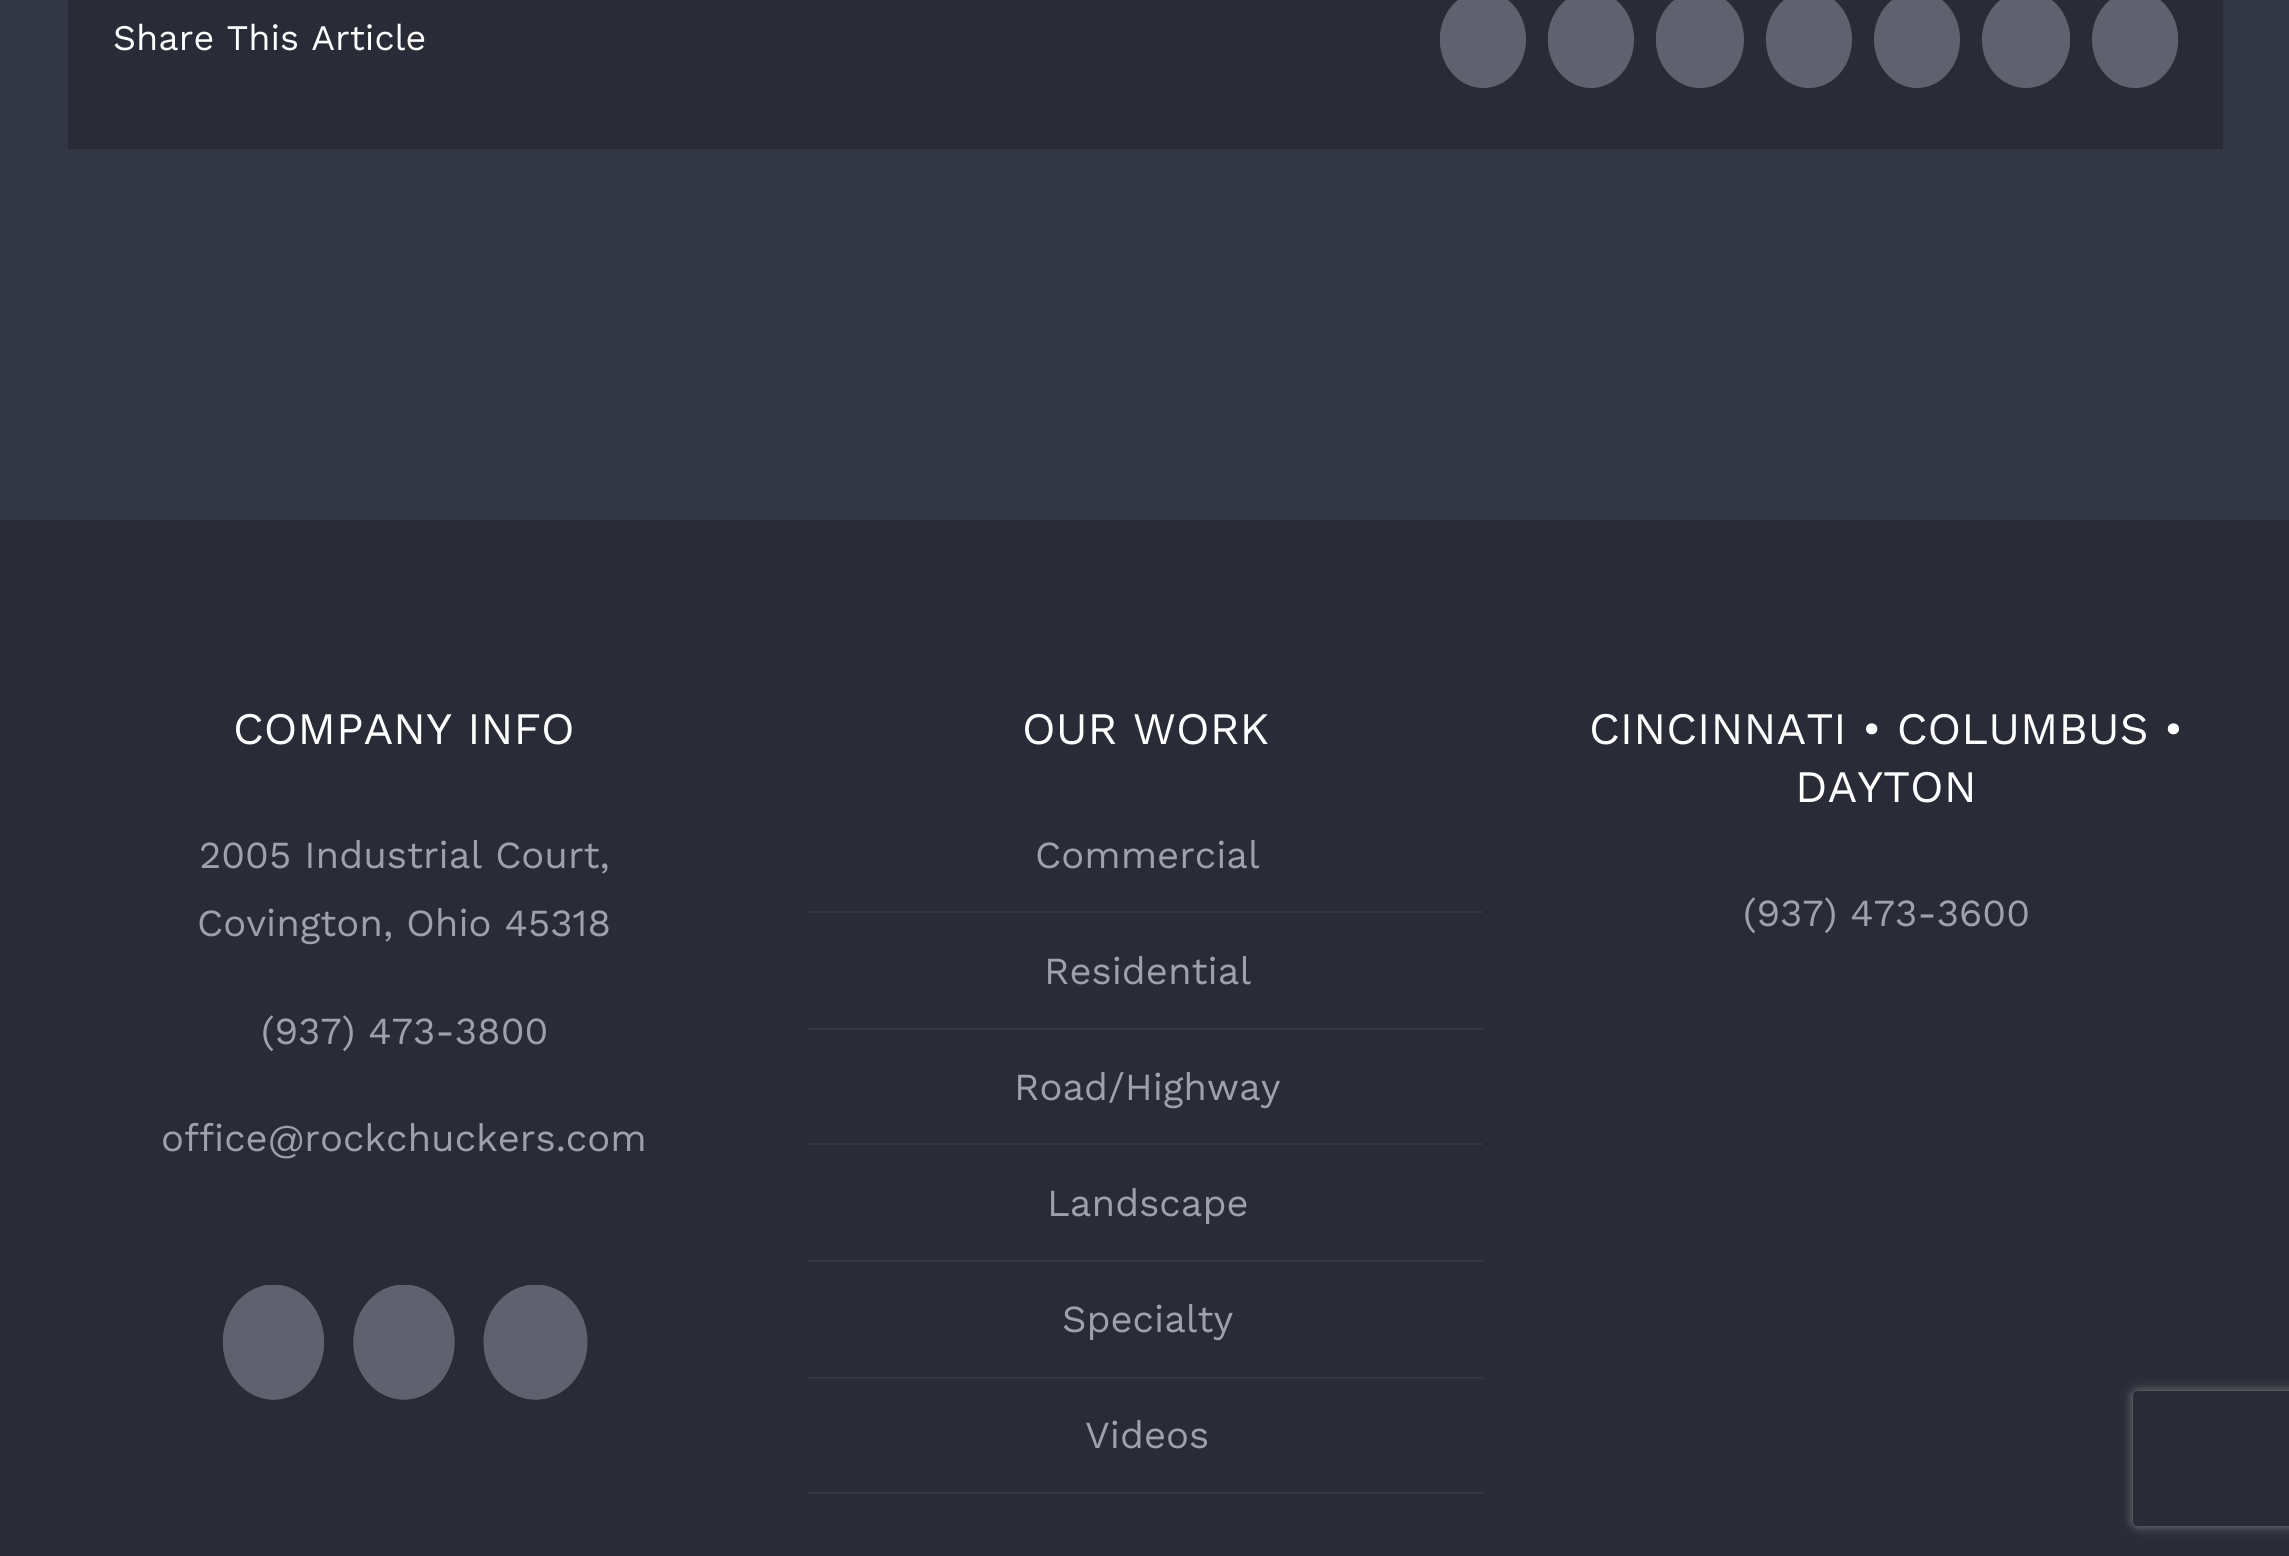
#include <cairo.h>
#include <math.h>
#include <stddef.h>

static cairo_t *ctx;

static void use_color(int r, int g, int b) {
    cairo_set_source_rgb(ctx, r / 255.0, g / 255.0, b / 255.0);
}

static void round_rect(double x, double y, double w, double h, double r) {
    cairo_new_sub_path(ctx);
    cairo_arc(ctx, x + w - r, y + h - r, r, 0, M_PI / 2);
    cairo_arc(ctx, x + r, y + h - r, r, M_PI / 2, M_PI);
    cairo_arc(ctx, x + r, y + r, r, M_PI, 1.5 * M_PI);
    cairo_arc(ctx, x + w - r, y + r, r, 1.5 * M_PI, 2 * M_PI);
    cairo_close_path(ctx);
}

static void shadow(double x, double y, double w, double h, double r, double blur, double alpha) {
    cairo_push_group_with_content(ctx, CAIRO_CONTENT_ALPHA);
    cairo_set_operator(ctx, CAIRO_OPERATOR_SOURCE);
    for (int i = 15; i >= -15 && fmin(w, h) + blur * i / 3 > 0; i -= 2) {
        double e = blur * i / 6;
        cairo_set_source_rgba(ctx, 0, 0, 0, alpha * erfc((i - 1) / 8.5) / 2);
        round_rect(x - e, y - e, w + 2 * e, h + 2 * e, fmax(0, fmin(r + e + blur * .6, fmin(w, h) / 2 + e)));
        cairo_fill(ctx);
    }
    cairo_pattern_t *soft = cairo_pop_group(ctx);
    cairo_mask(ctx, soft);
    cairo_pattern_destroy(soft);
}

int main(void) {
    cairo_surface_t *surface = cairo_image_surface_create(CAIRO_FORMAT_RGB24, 2289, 1556);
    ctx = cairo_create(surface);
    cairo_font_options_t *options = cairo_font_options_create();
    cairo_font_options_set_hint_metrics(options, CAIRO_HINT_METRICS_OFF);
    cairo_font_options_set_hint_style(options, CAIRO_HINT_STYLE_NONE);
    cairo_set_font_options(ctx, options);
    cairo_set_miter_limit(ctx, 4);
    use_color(51, 54, 69);
    cairo_paint(ctx);
    use_color(41, 43, 55);
    cairo_rectangle(ctx, 68, 0, 2155, 149);
    cairo_fill(ctx);
    cairo_select_font_face(ctx, "Work Sans", CAIRO_FONT_SLANT_NORMAL, CAIRO_FONT_WEIGHT_NORMAL);
    cairo_set_font_size(ctx, 36);
    use_color(255, 255, 255);
    cairo_move_to(ctx, 113, 50);
    cairo_show_text(ctx, "Share This Article");
    use_color(95, 97, 111);
    cairo_new_path(ctx);
    cairo_move_to(ctx, 1483, -9);
    cairo_curve_to(ctx, 1506.5, -9, 1526, 12.5, 1526, 39.5);
    cairo_curve_to(ctx, 1526, 66.5, 1506.5, 88, 1483, 88);
    cairo_curve_to(ctx, 1459.5, 88, 1440, 66.5, 1440, 39.5);
    cairo_curve_to(ctx, 1440, 12.5, 1459.5, -9, 1483, -9);
    cairo_close_path(ctx);
    cairo_fill(ctx);
    cairo_new_path(ctx);
    cairo_move_to(ctx, 1483, -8);
    cairo_curve_to(ctx, 1505.5, -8, 1524.5, 13.5, 1524.5, 39.5);
    cairo_curve_to(ctx, 1524.5, 65.5, 1505.5, 86.5, 1483, 86.5);
    cairo_curve_to(ctx, 1460, 86.5, 1441, 65.5, 1441, 39.5);
    cairo_curve_to(ctx, 1441, 13.5, 1460, -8, 1483, -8);
    cairo_close_path(ctx);
    cairo_set_line_width(ctx, 2.2);
    cairo_stroke(ctx);
    cairo_new_path(ctx);
    cairo_move_to(ctx, 1591, -9);
    cairo_curve_to(ctx, 1614.5, -9, 1634, 12.5, 1634, 39.5);
    cairo_curve_to(ctx, 1634, 66.5, 1614.5, 88, 1591, 88);
    cairo_curve_to(ctx, 1567.5, 88, 1548, 66.5, 1548, 39.5);
    cairo_curve_to(ctx, 1548, 12.5, 1567.5, -9, 1591, -9);
    cairo_close_path(ctx);
    cairo_fill(ctx);
    cairo_new_path(ctx);
    cairo_move_to(ctx, 1591, -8);
    cairo_curve_to(ctx, 1613.5, -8, 1632.5, 13.5, 1632.5, 39.5);
    cairo_curve_to(ctx, 1632.5, 65.5, 1613.5, 86.5, 1591, 86.5);
    cairo_curve_to(ctx, 1568, 86.5, 1549, 65.5, 1549, 39.5);
    cairo_curve_to(ctx, 1549, 13.5, 1568, -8, 1591, -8);
    cairo_close_path(ctx);
    cairo_stroke(ctx);
    cairo_new_path(ctx);
    cairo_move_to(ctx, 1700, -9);
    cairo_curve_to(ctx, 1724.5, -9, 1744, 12.5, 1744, 39.5);
    cairo_curve_to(ctx, 1744, 66.5, 1724.5, 88, 1700, 88);
    cairo_curve_to(ctx, 1675.5, 88, 1656, 66.5, 1656, 39.5);
    cairo_curve_to(ctx, 1656, 12.5, 1675.5, -9, 1700, -9);
    cairo_close_path(ctx);
    cairo_fill(ctx);
    cairo_new_path(ctx);
    cairo_move_to(ctx, 1700, -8);
    cairo_curve_to(ctx, 1723.5, -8, 1742.5, 13.5, 1742.5, 39.5);
    cairo_curve_to(ctx, 1742.5, 65.5, 1723.5, 86.5, 1700, 86.5);
    cairo_curve_to(ctx, 1676.5, 86.5, 1657, 65.5, 1657, 39.5);
    cairo_curve_to(ctx, 1657, 13.5, 1676.5, -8, 1700, -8);
    cairo_close_path(ctx);
    cairo_stroke(ctx);
    cairo_new_path(ctx);
    cairo_move_to(ctx, 1809, -9);
    cairo_curve_to(ctx, 1832.5, -9, 1852, 12.5, 1852, 39.5);
    cairo_curve_to(ctx, 1852, 66.5, 1832.5, 88, 1809, 88);
    cairo_curve_to(ctx, 1785.5, 88, 1766, 66.5, 1766, 39.5);
    cairo_curve_to(ctx, 1766, 12.5, 1785.5, -9, 1809, -9);
    cairo_close_path(ctx);
    cairo_fill(ctx);
    cairo_new_path(ctx);
    cairo_move_to(ctx, 1809, -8);
    cairo_curve_to(ctx, 1832, -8, 1850.5, 13.5, 1850.5, 39.5);
    cairo_curve_to(ctx, 1850.5, 65.5, 1832, 86.5, 1809, 86.5);
    cairo_curve_to(ctx, 1786, 86.5, 1767.5, 65.5, 1767.5, 39.5);
    cairo_curve_to(ctx, 1767.5, 13.5, 1786, -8, 1809, -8);
    cairo_close_path(ctx);
    cairo_stroke(ctx);
    cairo_new_path(ctx);
    cairo_move_to(ctx, 1917, -9);
    cairo_curve_to(ctx, 1940.5, -9, 1960, 12.5, 1960, 39.5);
    cairo_curve_to(ctx, 1960, 66.5, 1940.5, 88, 1917, 88);
    cairo_curve_to(ctx, 1893.5, 88, 1874, 66.5, 1874, 39.5);
    cairo_curve_to(ctx, 1874, 12.5, 1893.5, -9, 1917, -9);
    cairo_close_path(ctx);
    cairo_fill(ctx);
    cairo_new_path(ctx);
    cairo_move_to(ctx, 1917, -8);
    cairo_curve_to(ctx, 1940, -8, 1958.5, 13.5, 1958.5, 39.5);
    cairo_curve_to(ctx, 1958.5, 65.5, 1940, 86.5, 1917, 86.5);
    cairo_curve_to(ctx, 1894, 86.5, 1875.5, 65.5, 1875.5, 39.5);
    cairo_curve_to(ctx, 1875.5, 13.5, 1894, -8, 1917, -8);
    cairo_close_path(ctx);
    cairo_stroke(ctx);
    cairo_new_path(ctx);
    cairo_move_to(ctx, 2026, -9);
    cairo_curve_to(ctx, 2050.5, -9, 2070, 12.5, 2070, 39.5);
    cairo_curve_to(ctx, 2070, 66.5, 2050.5, 88, 2026, 88);
    cairo_curve_to(ctx, 2001.5, 88, 1982, 66.5, 1982, 39.5);
    cairo_curve_to(ctx, 1982, 12.5, 2001.5, -9, 2026, -9);
    cairo_close_path(ctx);
    cairo_fill(ctx);
    cairo_new_path(ctx);
    cairo_move_to(ctx, 2026, -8);
    cairo_curve_to(ctx, 2049.5, -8, 2069, 13.5, 2069, 39.5);
    cairo_curve_to(ctx, 2069, 65.5, 2049.5, 86.5, 2026, 86.5);
    cairo_curve_to(ctx, 2002.5, 86.5, 1983.5, 65.5, 1983.5, 39.5);
    cairo_curve_to(ctx, 1983.5, 13.5, 2002.5, -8, 2026, -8);
    cairo_close_path(ctx);
    cairo_stroke(ctx);
    cairo_new_path(ctx);
    cairo_move_to(ctx, 2135, -9);
    cairo_curve_to(ctx, 2158.5, -9, 2178, 12.5, 2178, 39.5);
    cairo_curve_to(ctx, 2178, 66.5, 2158.5, 88, 2135, 88);
    cairo_curve_to(ctx, 2111.5, 88, 2092, 66.5, 2092, 39.5);
    cairo_curve_to(ctx, 2092, 12.5, 2111.5, -9, 2135, -9);
    cairo_close_path(ctx);
    cairo_fill(ctx);
    cairo_new_path(ctx);
    cairo_move_to(ctx, 2135, -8);
    cairo_curve_to(ctx, 2158, -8, 2177, 13.5, 2177, 39.5);
    cairo_curve_to(ctx, 2177, 65.5, 2158, 86.5, 2135, 86.5);
    cairo_curve_to(ctx, 2112.5, 86.5, 2093.5, 65.5, 2093.5, 39.5);
    cairo_curve_to(ctx, 2093.5, 13.5, 2112.5, -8, 2135, -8);
    cairo_close_path(ctx);
    cairo_stroke(ctx);
    use_color(41, 43, 55);
    cairo_rectangle(ctx, 0, 520, 2289, 1036);
    cairo_fill(ctx);
    cairo_set_font_size(ctx, 45);
    use_color(255, 255, 255);
    cairo_move_to(ctx, 233, 744);
    cairo_show_text(ctx, "COMPANY INFO");
    cairo_set_font_size(ctx, 38.25);
    use_color(159, 160, 171);
    cairo_move_to(ctx, 199, 868);
    cairo_show_text(ctx, "2005 Industrial Court,");
    cairo_move_to(ctx, 197, 936);
    cairo_show_text(ctx, "Covington, Ohio 45318");
    cairo_move_to(ctx, 261, 1044);
    cairo_show_text(ctx, "(937) 473-3800");
    cairo_move_to(ctx, 161, 1151);
    cairo_show_text(ctx, "office@rockchuckers.com");
    cairo_save(ctx);
    cairo_rectangle(ctx, 68, 1285, 672, 137);
    cairo_clip(ctx);
    use_color(95, 97, 111);
    cairo_new_path(ctx);
    cairo_move_to(ctx, 273.5, 1284.5);
    cairo_curve_to(ctx, 301.5, 1284.5, 324, 1310, 324, 1342);
    cairo_curve_to(ctx, 324, 1374, 301.5, 1399.5, 273.5, 1399.5);
    cairo_curve_to(ctx, 245.5, 1399.5, 223, 1374, 223, 1342);
    cairo_curve_to(ctx, 223, 1310, 245.5, 1284.5, 273.5, 1284.5);
    cairo_close_path(ctx);
    cairo_fill(ctx);
    cairo_restore(ctx);
    cairo_new_path(ctx);
    cairo_move_to(ctx, 273.5, 1286);
    cairo_curve_to(ctx, 300.5, 1286, 323, 1311, 323, 1342);
    cairo_curve_to(ctx, 323, 1373, 300.5, 1398.5, 273.5, 1398.5);
    cairo_curve_to(ctx, 246, 1398.5, 224, 1373, 224, 1342);
    cairo_curve_to(ctx, 224, 1311, 246, 1286, 273.5, 1286);
    cairo_close_path(ctx);
    use_color(95, 97, 111);
    cairo_stroke(ctx);
    cairo_save(ctx);
    cairo_rectangle(ctx, 68, 1285, 672, 137);
    cairo_clip(ctx);
    cairo_new_path(ctx);
    cairo_move_to(ctx, 404, 1284.5);
    cairo_curve_to(ctx, 432, 1284.5, 454.5, 1310, 454.5, 1342);
    cairo_curve_to(ctx, 454.5, 1374, 432, 1399.5, 404, 1399.5);
    cairo_curve_to(ctx, 376, 1399.5, 353.5, 1374, 353.5, 1342);
    cairo_curve_to(ctx, 353.5, 1310, 376, 1284.5, 404, 1284.5);
    cairo_close_path(ctx);
    cairo_fill(ctx);
    cairo_restore(ctx);
    cairo_new_path(ctx);
    cairo_move_to(ctx, 404, 1286);
    cairo_curve_to(ctx, 431, 1286, 453.5, 1311, 453.5, 1342);
    cairo_curve_to(ctx, 453.5, 1373, 431, 1398.5, 404, 1398.5);
    cairo_curve_to(ctx, 376.5, 1398.5, 354.5, 1373, 354.5, 1342);
    cairo_curve_to(ctx, 354.5, 1311, 376.5, 1286, 404, 1286);
    cairo_close_path(ctx);
    cairo_stroke(ctx);
    cairo_save(ctx);
    cairo_rectangle(ctx, 68, 1285, 672, 137);
    cairo_clip(ctx);
    cairo_new_path(ctx);
    cairo_move_to(ctx, 535.5, 1284.5);
    cairo_curve_to(ctx, 564, 1284.5, 587.5, 1310, 587.5, 1342);
    cairo_curve_to(ctx, 587.5, 1374, 564, 1399.5, 535.5, 1399.5);
    cairo_curve_to(ctx, 507, 1399.5, 483.5, 1374, 483.5, 1342);
    cairo_curve_to(ctx, 483.5, 1310, 507, 1284.5, 535.5, 1284.5);
    cairo_close_path(ctx);
    cairo_fill(ctx);
    cairo_restore(ctx);
    cairo_new_path(ctx);
    cairo_move_to(ctx, 535.5, 1286);
    cairo_curve_to(ctx, 563.5, 1286, 586, 1311, 586, 1342);
    cairo_curve_to(ctx, 586, 1373, 563.5, 1398.5, 535.5, 1398.5);
    cairo_curve_to(ctx, 507.5, 1398.5, 485, 1373, 485, 1342);
    cairo_curve_to(ctx, 485, 1311, 507.5, 1286, 535.5, 1286);
    cairo_close_path(ctx);
    cairo_stroke(ctx);
    cairo_set_font_size(ctx, 45);
    use_color(255, 255, 255);
    cairo_move_to(ctx, 1022, 744);
    cairo_show_text(ctx, "OUR WORK");
    use_color(51, 54, 69);
    cairo_rectangle(ctx, 808, 911, 675, 2);
    cairo_fill(ctx);
    cairo_set_font_size(ctx, 38.25);
    use_color(159, 160, 171);
    cairo_move_to(ctx, 1035, 868);
    cairo_show_text(ctx, "Commercial");
    use_color(51, 54, 69);
    cairo_rectangle(ctx, 808, 1028, 675, 2);
    cairo_fill(ctx);
    use_color(159, 160, 171);
    cairo_move_to(ctx, 1044, 984);
    cairo_show_text(ctx, "Residential");
    use_color(51, 54, 69);
    cairo_rectangle(ctx, 808, 1143, 675, 2);
    cairo_fill(ctx);
    use_color(159, 160, 171);
    cairo_move_to(ctx, 1014, 1100);
    cairo_show_text(ctx, "Road/Highway");
    use_color(51, 54, 69);
    cairo_rectangle(ctx, 808, 1260, 675, 2);
    cairo_fill(ctx);
    use_color(159, 160, 171);
    cairo_move_to(ctx, 1047, 1216);
    cairo_show_text(ctx, "Landscape");
    use_color(51, 54, 69);
    cairo_rectangle(ctx, 808, 1377, 675, 2);
    cairo_fill(ctx);
    use_color(159, 160, 171);
    cairo_move_to(ctx, 1062, 1332);
    cairo_show_text(ctx, "Specialty");
    use_color(51, 54, 69);
    cairo_rectangle(ctx, 808, 1492, 675, 2);
    cairo_fill(ctx);
    use_color(159, 160, 171);
    cairo_move_to(ctx, 1085, 1448);
    cairo_show_text(ctx, "Videos");
    cairo_set_font_size(ctx, 45);
    use_color(255, 255, 255);
    cairo_move_to(ctx, 1589, 744);
    cairo_show_text(ctx, "CINCINNATI • COLUMBUS •");
    cairo_move_to(ctx, 1795, 802);
    cairo_show_text(ctx, "DAYTON");
    cairo_set_font_size(ctx, 38.25);
    use_color(159, 160, 171);
    cairo_move_to(ctx, 1743, 926);
    cairo_show_text(ctx, "(937) 473-3600");
    cairo_save(ctx);
    cairo_set_fill_rule(ctx, CAIRO_FILL_RULE_EVEN_ODD);
    cairo_new_path(ctx);
    cairo_move_to(ctx, 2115, 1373);
    cairo_line_to(ctx, 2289, 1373);
    cairo_line_to(ctx, 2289, 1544);
    cairo_line_to(ctx, 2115, 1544);
    cairo_close_path(ctx);
    cairo_move_to(ctx, 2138, 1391);
    cairo_line_to(ctx, 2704, 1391);
    cairo_curve_to(ctx, 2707, 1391, 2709, 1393, 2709, 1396);
    cairo_line_to(ctx, 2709, 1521);
    cairo_curve_to(ctx, 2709, 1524, 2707, 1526, 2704, 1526);
    cairo_line_to(ctx, 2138, 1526);
    cairo_curve_to(ctx, 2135, 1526, 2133, 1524, 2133, 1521);
    cairo_line_to(ctx, 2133, 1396);
    cairo_curve_to(ctx, 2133, 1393, 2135, 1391, 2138, 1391);
    cairo_close_path(ctx);
    cairo_clip(ctx);
    use_color(128, 128, 128);
    shadow(2133, 1391, 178, 135, 5, 5.5, 1);
    cairo_restore(ctx);
    cairo_surface_write_to_png(surface, "result.png");
    cairo_font_options_destroy(options);
    cairo_destroy(ctx);
    cairo_surface_destroy(surface);
    return 0;
}
